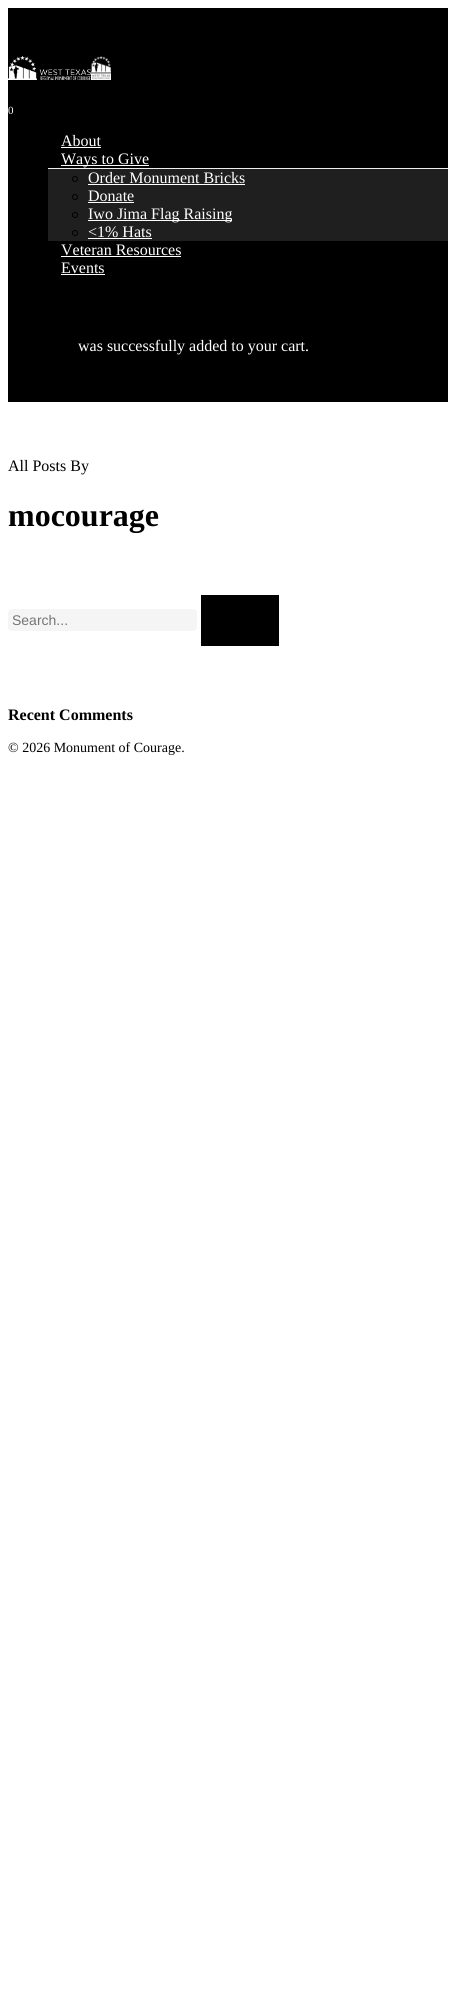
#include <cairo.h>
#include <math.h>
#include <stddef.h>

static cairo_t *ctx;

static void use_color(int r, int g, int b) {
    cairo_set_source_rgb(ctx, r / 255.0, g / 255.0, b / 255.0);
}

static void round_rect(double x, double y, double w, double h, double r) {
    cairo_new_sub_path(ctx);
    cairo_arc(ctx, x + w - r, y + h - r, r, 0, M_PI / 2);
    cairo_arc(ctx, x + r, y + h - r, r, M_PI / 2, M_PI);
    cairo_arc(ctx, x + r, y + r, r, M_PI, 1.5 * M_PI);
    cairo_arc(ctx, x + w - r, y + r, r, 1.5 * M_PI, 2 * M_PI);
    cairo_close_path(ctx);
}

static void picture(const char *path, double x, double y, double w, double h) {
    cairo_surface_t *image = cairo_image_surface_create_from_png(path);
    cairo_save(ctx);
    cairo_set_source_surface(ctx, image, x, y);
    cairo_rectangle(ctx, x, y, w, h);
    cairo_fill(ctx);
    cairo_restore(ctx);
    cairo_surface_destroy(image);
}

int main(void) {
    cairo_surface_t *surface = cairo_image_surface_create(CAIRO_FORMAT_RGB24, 456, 2013);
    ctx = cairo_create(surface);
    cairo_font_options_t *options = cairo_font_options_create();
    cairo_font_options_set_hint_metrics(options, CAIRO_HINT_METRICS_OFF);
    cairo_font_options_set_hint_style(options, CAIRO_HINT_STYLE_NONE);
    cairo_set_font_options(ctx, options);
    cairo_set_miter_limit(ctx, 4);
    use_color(255, 255, 255);
    cairo_paint(ctx);
    use_color(0, 0, 0);
    cairo_rectangle(ctx, 8, 8, 440, 394);
    cairo_fill(ctx);
    picture("img1.png", 8, 56, 83, 24);
    picture("img2.png", 91, 56, 20, 24);
    cairo_select_font_face(ctx, "Liberation Serif", CAIRO_FONT_SLANT_NORMAL, CAIRO_FONT_WEIGHT_NORMAL);
    cairo_set_font_size(ctx, 11);
    use_color(255, 255, 255);
    cairo_move_to(ctx, 8, 114);
    cairo_show_text(ctx, "0");
    cairo_set_font_size(ctx, 16);
    cairo_move_to(ctx, 61, 146);
    cairo_show_text(ctx, "About");
    cairo_rectangle(ctx, 61, 147, 40, 1);
    cairo_fill(ctx);
    cairo_rectangle(ctx, 61, 165, 88, 1);
    cairo_fill(ctx);
    cairo_move_to(ctx, 61, 164);
    cairo_show_text(ctx, "Ways to Give");
    use_color(31, 31, 31);
    cairo_rectangle(ctx, 48, 169, 400, 72);
    cairo_fill(ctx);
    use_color(238, 238, 238);
    cairo_rectangle(ctx, 48, 168, 400, 1);
    cairo_fill(ctx);
    cairo_arc(ctx, 75, 179, 2.5, 0, 2 * M_PI);
    use_color(0, 0, 0);
    cairo_set_line_width(ctx, 1);
    cairo_stroke(ctx);
    use_color(255, 255, 255);
    cairo_move_to(ctx, 88, 183);
    cairo_show_text(ctx, "Order Monument Bricks");
    cairo_rectangle(ctx, 88, 184, 157, 1);
    cairo_fill(ctx);
    cairo_arc(ctx, 75, 197, 2.5, 0, 2 * M_PI);
    use_color(0, 0, 0);
    cairo_stroke(ctx);
    use_color(255, 255, 255);
    cairo_move_to(ctx, 88, 201);
    cairo_show_text(ctx, "Donate");
    cairo_rectangle(ctx, 88, 202, 46, 1);
    cairo_fill(ctx);
    cairo_arc(ctx, 75, 215, 2.5, 0, 2 * M_PI);
    use_color(0, 0, 0);
    cairo_stroke(ctx);
    use_color(255, 255, 255);
    cairo_rectangle(ctx, 88, 220, 144, 1);
    cairo_fill(ctx);
    cairo_move_to(ctx, 88, 219);
    cairo_show_text(ctx, "Iwo Jima Flag Raising");
    cairo_new_path(ctx);
    cairo_arc(ctx, 75, 233, 2.5, 0, 2 * M_PI);
    use_color(0, 0, 0);
    cairo_stroke(ctx);
    use_color(255, 255, 255);
    cairo_move_to(ctx, 88, 237);
    cairo_show_text(ctx, "<1% Hats");
    cairo_rectangle(ctx, 88, 238, 64, 1);
    cairo_fill(ctx);
    cairo_move_to(ctx, 61, 255);
    cairo_show_text(ctx, "Veteran Resources");
    cairo_rectangle(ctx, 61, 256, 120, 1);
    cairo_fill(ctx);
    cairo_move_to(ctx, 61, 273);
    cairo_show_text(ctx, "Events");
    cairo_rectangle(ctx, 61, 274, 44, 1);
    cairo_fill(ctx);
    cairo_move_to(ctx, 78, 351);
    cairo_show_text(ctx, "was successfully added to your cart.");
    use_color(0, 0, 0);
    cairo_move_to(ctx, 8, 471);
    cairo_show_text(ctx, "All Posts By");
    cairo_select_font_face(ctx, "Liberation Serif", CAIRO_FONT_SLANT_NORMAL, CAIRO_FONT_WEIGHT_BOLD);
    cairo_set_font_size(ctx, 32);
    cairo_move_to(ctx, 8, 526);
    cairo_show_text(ctx, "mocourage");
    use_color(245, 245, 245);
    round_rect(8, 609, 189, 22, 4);
    cairo_fill(ctx);
    cairo_select_font_face(ctx, "Liberation Sans", CAIRO_FONT_SLANT_NORMAL, CAIRO_FONT_WEIGHT_NORMAL);
    cairo_set_font_size(ctx, 14);
    use_color(117, 117, 117);
    cairo_move_to(ctx, 12, 625);
    cairo_show_text(ctx, "Search...");
    use_color(0, 0, 0);
    cairo_rectangle(ctx, 201, 595, 78, 51);
    cairo_fill(ctx);
    cairo_select_font_face(ctx, "Liberation Serif", CAIRO_FONT_SLANT_NORMAL, CAIRO_FONT_WEIGHT_BOLD);
    cairo_set_font_size(ctx, 16);
    cairo_move_to(ctx, 8, 720);
    cairo_show_text(ctx, "Recent Comments");
    cairo_select_font_face(ctx, "Liberation Serif", CAIRO_FONT_SLANT_NORMAL, CAIRO_FONT_WEIGHT_NORMAL);
    cairo_set_font_size(ctx, 14);
    cairo_move_to(ctx, 8, 752);
    cairo_show_text(ctx, "© 2026 Monument of Courage.");
    cairo_surface_write_to_png(surface, "result.png");
    cairo_font_options_destroy(options);
    cairo_destroy(ctx);
    cairo_surface_destroy(surface);
    return 0;
}
